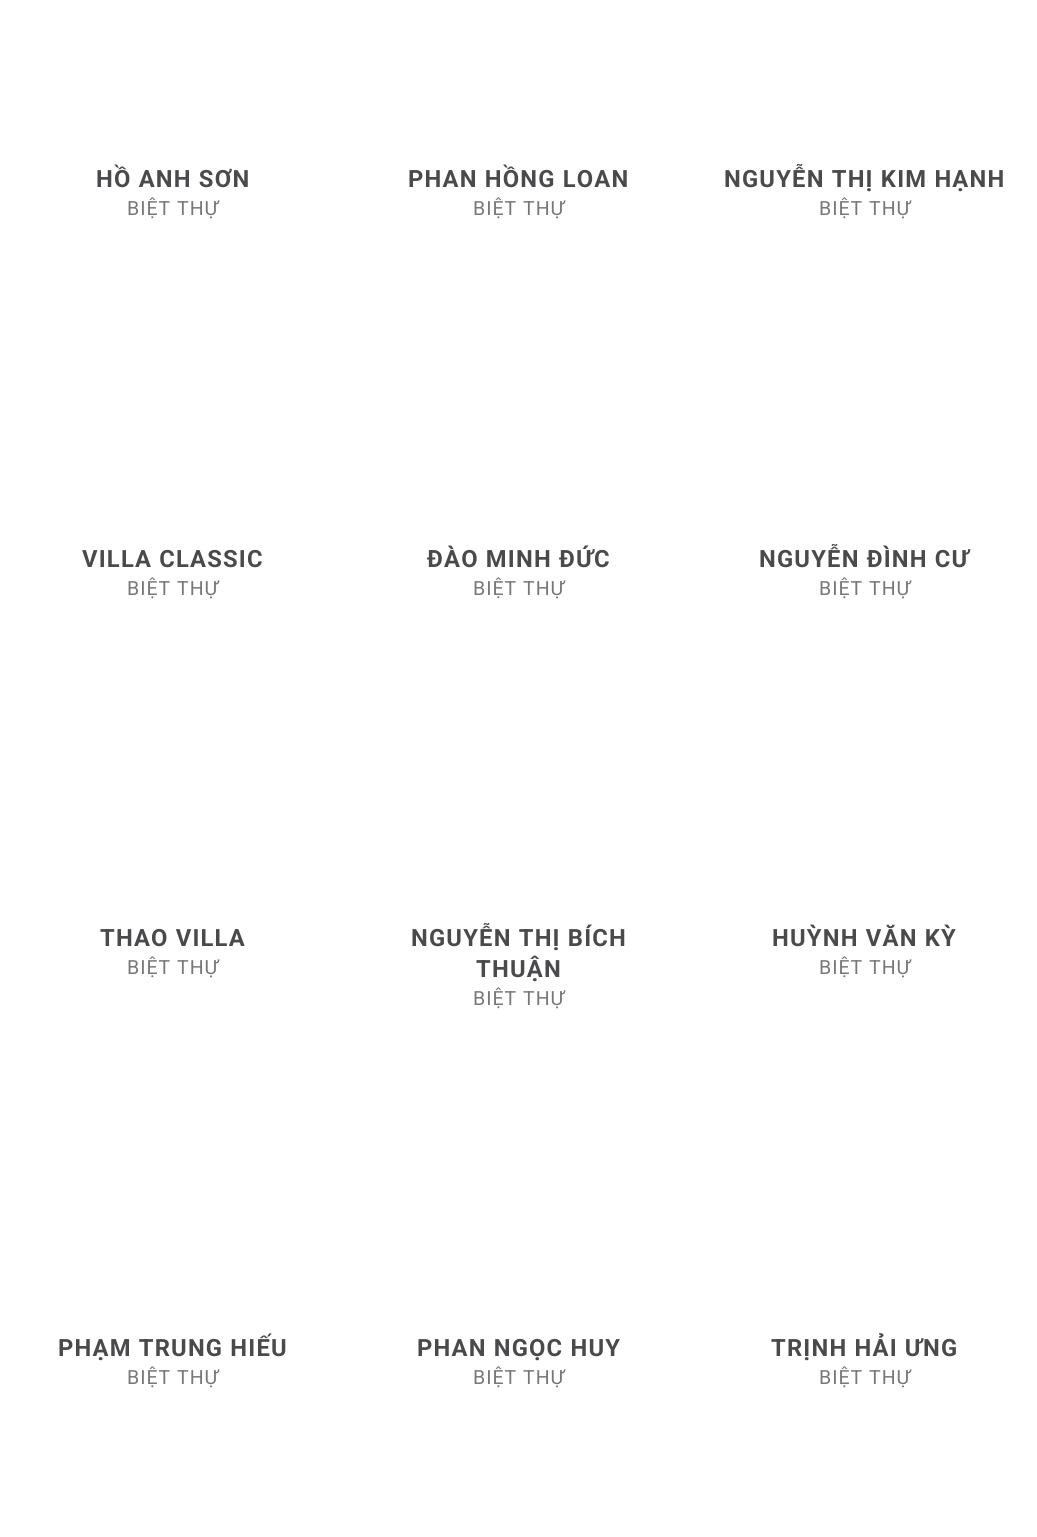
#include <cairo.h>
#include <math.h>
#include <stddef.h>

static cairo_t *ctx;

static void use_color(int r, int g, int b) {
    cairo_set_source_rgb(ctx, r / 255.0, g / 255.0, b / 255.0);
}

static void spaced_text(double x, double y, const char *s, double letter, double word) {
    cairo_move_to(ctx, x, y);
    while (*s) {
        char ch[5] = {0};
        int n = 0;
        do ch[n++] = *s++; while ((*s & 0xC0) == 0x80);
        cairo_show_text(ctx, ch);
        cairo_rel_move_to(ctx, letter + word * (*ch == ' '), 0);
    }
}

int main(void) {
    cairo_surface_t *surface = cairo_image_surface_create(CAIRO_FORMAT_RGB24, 1037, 1537);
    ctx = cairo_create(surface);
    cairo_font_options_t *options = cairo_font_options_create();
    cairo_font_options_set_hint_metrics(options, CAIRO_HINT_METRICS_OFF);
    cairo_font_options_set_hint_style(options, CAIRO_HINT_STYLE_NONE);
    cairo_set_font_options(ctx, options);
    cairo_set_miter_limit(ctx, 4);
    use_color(255, 255, 255);
    cairo_paint(ctx);
    cairo_select_font_face(ctx, "Roboto", CAIRO_FONT_SLANT_NORMAL, CAIRO_FONT_WEIGHT_BOLD);
    cairo_set_font_size(ctx, 23.75);
    use_color(74, 74, 76);
    spaced_text(96, 187, "HỒ ANH SƠN", 1.2, 0);
    cairo_select_font_face(ctx, "Roboto", CAIRO_FONT_SLANT_NORMAL, CAIRO_FONT_WEIGHT_NORMAL);
    cairo_set_font_size(ctx, 19.5);
    use_color(119, 119, 121);
    spaced_text(127, 215, "BIỆT THỰ", 1, 0);
    cairo_select_font_face(ctx, "Roboto", CAIRO_FONT_SLANT_NORMAL, CAIRO_FONT_WEIGHT_BOLD);
    cairo_set_font_size(ctx, 23.75);
    use_color(74, 74, 76);
    spaced_text(408, 187, "PHAN HỒNG LOAN", 1.2, 0);
    cairo_select_font_face(ctx, "Roboto", CAIRO_FONT_SLANT_NORMAL, CAIRO_FONT_WEIGHT_NORMAL);
    cairo_set_font_size(ctx, 19.5);
    use_color(119, 119, 121);
    spaced_text(473, 215, "BIỆT THỰ", 1, 0);
    cairo_select_font_face(ctx, "Roboto", CAIRO_FONT_SLANT_NORMAL, CAIRO_FONT_WEIGHT_BOLD);
    cairo_set_font_size(ctx, 23.75);
    use_color(74, 74, 76);
    spaced_text(724, 187, "NGUYỄN THỊ KIM HẠNH", 1.2, 0);
    cairo_select_font_face(ctx, "Roboto", CAIRO_FONT_SLANT_NORMAL, CAIRO_FONT_WEIGHT_NORMAL);
    cairo_set_font_size(ctx, 19.5);
    use_color(119, 119, 121);
    spaced_text(819, 215, "BIỆT THỰ", 1, 0);
    cairo_select_font_face(ctx, "Roboto", CAIRO_FONT_SLANT_NORMAL, CAIRO_FONT_WEIGHT_BOLD);
    cairo_set_font_size(ctx, 23.75);
    use_color(74, 74, 76);
    spaced_text(82, 567, "VILLA CLASSIC", 1.2, 0);
    cairo_select_font_face(ctx, "Roboto", CAIRO_FONT_SLANT_NORMAL, CAIRO_FONT_WEIGHT_NORMAL);
    cairo_set_font_size(ctx, 19.5);
    use_color(119, 119, 121);
    spaced_text(127, 595, "BIỆT THỰ", 1, 0);
    cairo_select_font_face(ctx, "Roboto", CAIRO_FONT_SLANT_NORMAL, CAIRO_FONT_WEIGHT_BOLD);
    cairo_set_font_size(ctx, 23.75);
    use_color(74, 74, 76);
    spaced_text(427, 567, "ĐÀO MINH ĐỨC", 1.2, 0);
    cairo_select_font_face(ctx, "Roboto", CAIRO_FONT_SLANT_NORMAL, CAIRO_FONT_WEIGHT_NORMAL);
    cairo_set_font_size(ctx, 19.5);
    use_color(119, 119, 121);
    spaced_text(473, 595, "BIỆT THỰ", 1, 0);
    cairo_select_font_face(ctx, "Roboto", CAIRO_FONT_SLANT_NORMAL, CAIRO_FONT_WEIGHT_BOLD);
    cairo_set_font_size(ctx, 23.75);
    use_color(74, 74, 76);
    spaced_text(759, 567, "NGUYỄN ĐÌNH CƯ", 1.2, 0);
    cairo_select_font_face(ctx, "Roboto", CAIRO_FONT_SLANT_NORMAL, CAIRO_FONT_WEIGHT_NORMAL);
    cairo_set_font_size(ctx, 19.5);
    use_color(119, 119, 121);
    spaced_text(819, 595, "BIỆT THỰ", 1, 0);
    cairo_select_font_face(ctx, "Roboto", CAIRO_FONT_SLANT_NORMAL, CAIRO_FONT_WEIGHT_BOLD);
    cairo_set_font_size(ctx, 23.75);
    use_color(74, 74, 76);
    spaced_text(100, 946, "THAO VILLA", 1.2, 0);
    cairo_select_font_face(ctx, "Roboto", CAIRO_FONT_SLANT_NORMAL, CAIRO_FONT_WEIGHT_NORMAL);
    cairo_set_font_size(ctx, 19.5);
    use_color(119, 119, 121);
    spaced_text(127, 974, "BIỆT THỰ", 1, 0);
    cairo_select_font_face(ctx, "Roboto", CAIRO_FONT_SLANT_NORMAL, CAIRO_FONT_WEIGHT_BOLD);
    cairo_set_font_size(ctx, 23.75);
    use_color(74, 74, 76);
    spaced_text(411, 946, "NGUYỄN THỊ BÍCH", 1.2, 0);
    spaced_text(476, 977, "THUẬN", 1.2, 0);
    cairo_select_font_face(ctx, "Roboto", CAIRO_FONT_SLANT_NORMAL, CAIRO_FONT_WEIGHT_NORMAL);
    cairo_set_font_size(ctx, 19.5);
    use_color(119, 119, 121);
    spaced_text(473, 1005, "BIỆT THỰ", 1, 0);
    cairo_select_font_face(ctx, "Roboto", CAIRO_FONT_SLANT_NORMAL, CAIRO_FONT_WEIGHT_BOLD);
    cairo_set_font_size(ctx, 23.75);
    use_color(74, 74, 76);
    spaced_text(772, 946, "HUỲNH VĂN KỲ", 1.2, 0);
    cairo_select_font_face(ctx, "Roboto", CAIRO_FONT_SLANT_NORMAL, CAIRO_FONT_WEIGHT_NORMAL);
    cairo_set_font_size(ctx, 19.5);
    use_color(119, 119, 121);
    spaced_text(819, 974, "BIỆT THỰ", 1, 0);
    cairo_select_font_face(ctx, "Roboto", CAIRO_FONT_SLANT_NORMAL, CAIRO_FONT_WEIGHT_BOLD);
    cairo_set_font_size(ctx, 23.75);
    use_color(74, 74, 76);
    spaced_text(58, 1356, "PHẠM TRUNG HIẾU", 1.2, 0);
    cairo_select_font_face(ctx, "Roboto", CAIRO_FONT_SLANT_NORMAL, CAIRO_FONT_WEIGHT_NORMAL);
    cairo_set_font_size(ctx, 19.5);
    use_color(119, 119, 121);
    spaced_text(127, 1384, "BIỆT THỰ", 1, 0);
    cairo_select_font_face(ctx, "Roboto", CAIRO_FONT_SLANT_NORMAL, CAIRO_FONT_WEIGHT_BOLD);
    cairo_set_font_size(ctx, 23.75);
    use_color(74, 74, 76);
    spaced_text(417, 1356, "PHAN NGỌC HUY", 1.2, 0);
    cairo_select_font_face(ctx, "Roboto", CAIRO_FONT_SLANT_NORMAL, CAIRO_FONT_WEIGHT_NORMAL);
    cairo_set_font_size(ctx, 19.5);
    use_color(119, 119, 121);
    spaced_text(473, 1384, "BIỆT THỰ", 1, 0);
    cairo_select_font_face(ctx, "Roboto", CAIRO_FONT_SLANT_NORMAL, CAIRO_FONT_WEIGHT_BOLD);
    cairo_set_font_size(ctx, 23.75);
    use_color(74, 74, 76);
    spaced_text(771, 1356, "TRỊNH HẢI ƯNG", 1.2, 0);
    cairo_select_font_face(ctx, "Roboto", CAIRO_FONT_SLANT_NORMAL, CAIRO_FONT_WEIGHT_NORMAL);
    cairo_set_font_size(ctx, 19.5);
    use_color(119, 119, 121);
    spaced_text(819, 1384, "BIỆT THỰ", 1, 0);
    cairo_surface_write_to_png(surface, "result.png");
    cairo_font_options_destroy(options);
    cairo_destroy(ctx);
    cairo_surface_destroy(surface);
    return 0;
}
